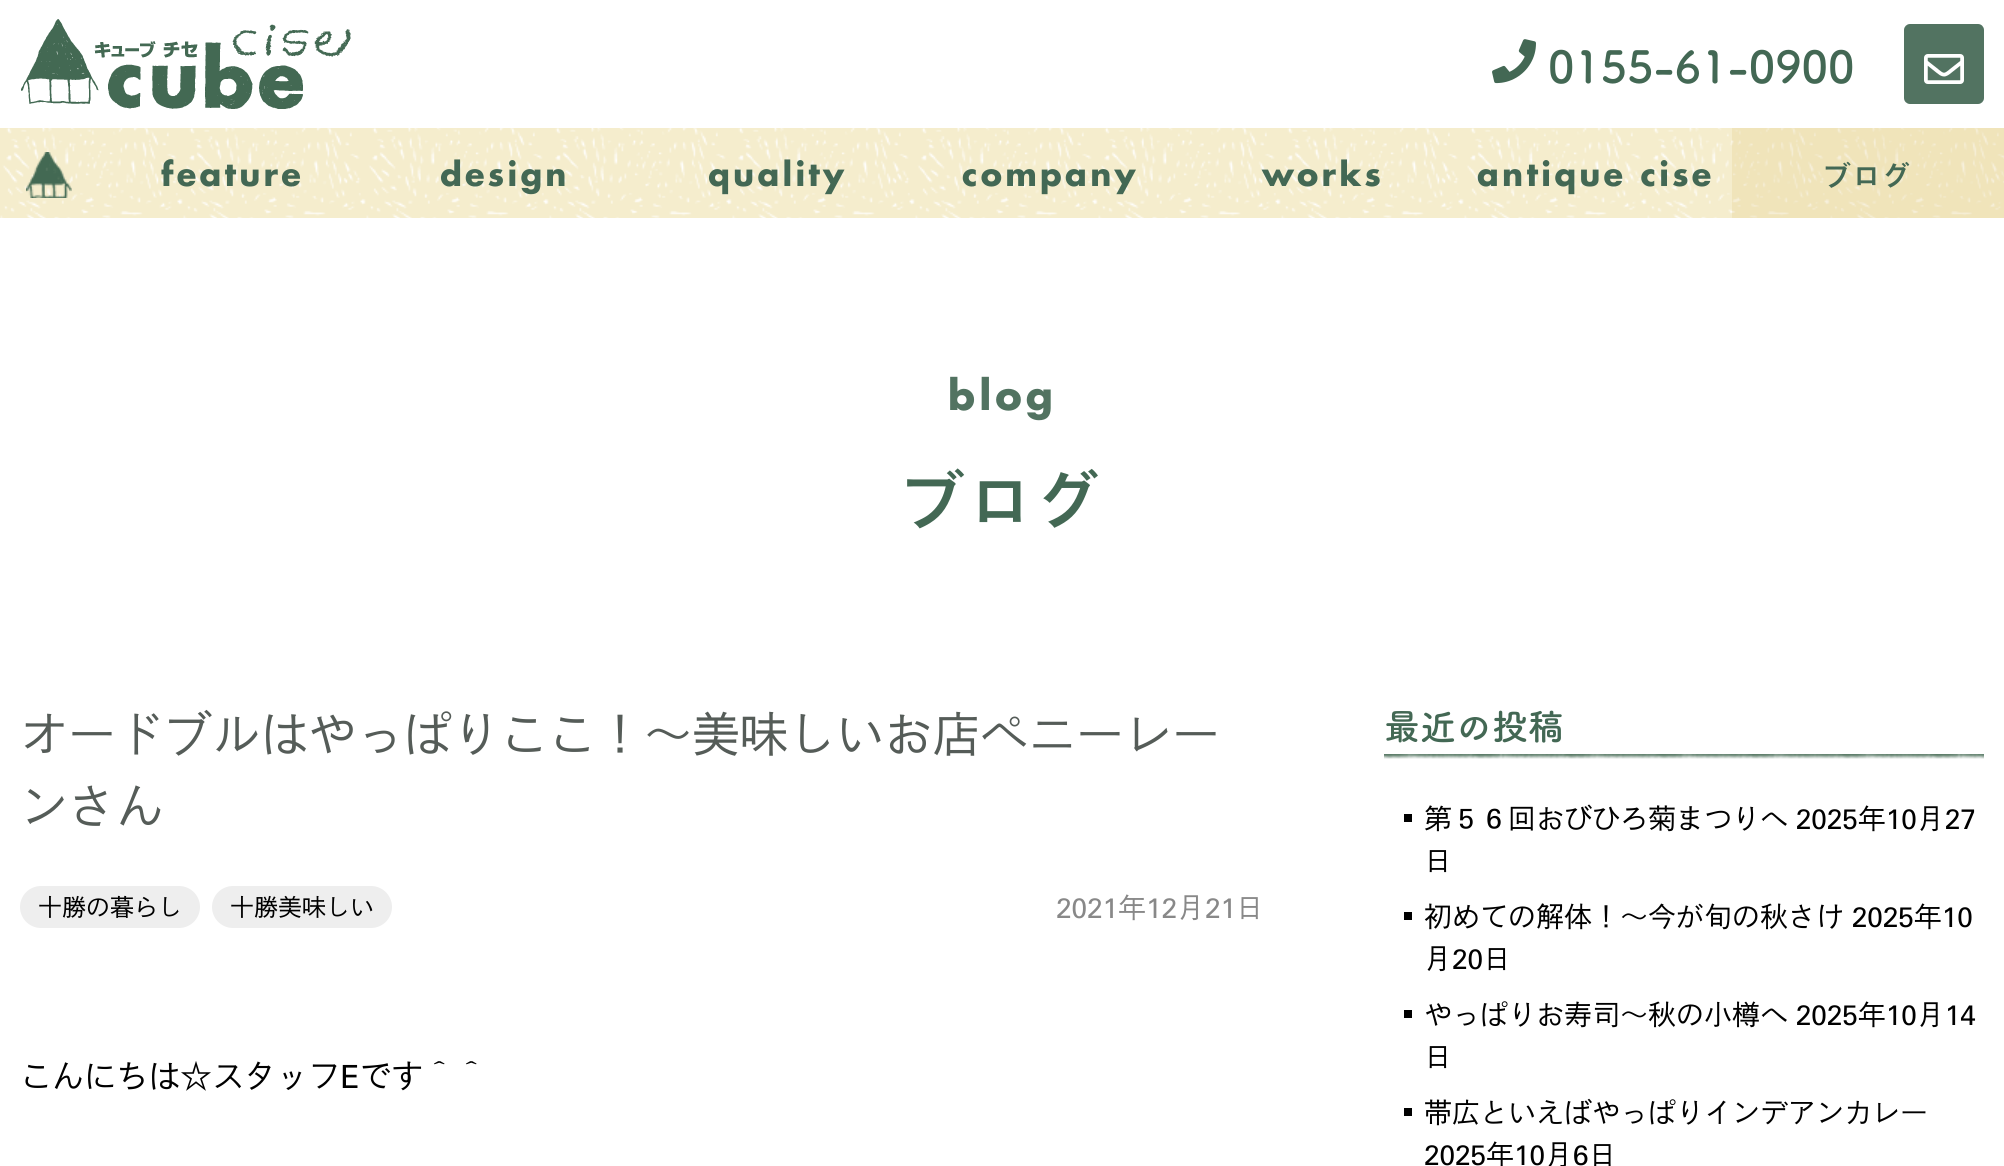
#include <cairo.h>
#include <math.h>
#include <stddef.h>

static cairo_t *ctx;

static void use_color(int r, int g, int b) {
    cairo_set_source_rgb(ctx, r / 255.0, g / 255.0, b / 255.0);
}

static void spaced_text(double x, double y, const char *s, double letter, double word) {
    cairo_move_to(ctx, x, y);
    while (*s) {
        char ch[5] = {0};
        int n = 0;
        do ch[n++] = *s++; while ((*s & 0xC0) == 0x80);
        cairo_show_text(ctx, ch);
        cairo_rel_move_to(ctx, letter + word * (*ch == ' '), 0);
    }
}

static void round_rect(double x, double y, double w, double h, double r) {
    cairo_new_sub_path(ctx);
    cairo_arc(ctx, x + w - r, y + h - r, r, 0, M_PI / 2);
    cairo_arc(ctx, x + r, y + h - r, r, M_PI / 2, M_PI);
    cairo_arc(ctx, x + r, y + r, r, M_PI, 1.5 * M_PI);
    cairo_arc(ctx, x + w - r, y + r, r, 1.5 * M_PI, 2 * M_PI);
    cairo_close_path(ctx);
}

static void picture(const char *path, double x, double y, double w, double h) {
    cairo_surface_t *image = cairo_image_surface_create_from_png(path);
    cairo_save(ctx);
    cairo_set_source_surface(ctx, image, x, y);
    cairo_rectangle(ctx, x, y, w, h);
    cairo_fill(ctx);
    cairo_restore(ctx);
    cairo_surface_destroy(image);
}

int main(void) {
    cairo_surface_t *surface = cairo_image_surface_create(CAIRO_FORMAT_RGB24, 2004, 1166);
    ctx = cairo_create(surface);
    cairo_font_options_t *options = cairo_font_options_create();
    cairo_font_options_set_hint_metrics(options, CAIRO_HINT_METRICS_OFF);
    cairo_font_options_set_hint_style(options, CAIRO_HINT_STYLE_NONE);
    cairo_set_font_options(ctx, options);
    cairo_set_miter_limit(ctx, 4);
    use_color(255, 255, 255);
    cairo_paint(ctx);
    picture("img1.png", 21, 19, 330, 90);
    picture("img2.png", 1492, 39, 44, 45);
    cairo_select_font_face(ctx, "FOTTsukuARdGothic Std", CAIRO_FONT_SLANT_NORMAL, CAIRO_FONT_WEIGHT_BOLD);
    cairo_set_font_size(ctx, 44);
    use_color(67, 104, 84);
    cairo_move_to(ctx, 1548, 83);
    cairo_show_text(ctx, "0155-61-0900");
    use_color(82, 115, 97);
    round_rect(1906, 26, 76, 76, 4);
    cairo_fill_preserve(ctx);
    cairo_set_line_width(ctx, 4);
    cairo_stroke(ctx);
    picture("img3.png", 1924, 54, 40, 30);
    use_color(245, 237, 205);
    cairo_rectangle(ctx, 0, 128, 2004, 90);
    cairo_fill(ctx);
    picture("img4.png", 0, 128, 2004, 90);
    picture("img5.png", 26, 152, 46, 46);
    cairo_select_font_face(ctx, "Futura", CAIRO_FONT_SLANT_NORMAL, CAIRO_FONT_WEIGHT_BOLD);
    cairo_set_font_size(ctx, 32);
    use_color(67, 104, 84);
    spaced_text(161, 186, "feature", 3.25, 0);
    spaced_text(440, 186, "design", 3.25, 0);
    spaced_text(708, 186, "quality", 3.25, 0);
    spaced_text(962, 186, "company", 3.25, 0);
    spaced_text(1262, 186, "works", 3.25, 0);
    spaced_text(1477, 186, "antique cise", 3.25, 0);
    cairo_set_source_rgba(ctx, 0.882, 0.784, 0.502, 0.25);
    cairo_rectangle(ctx, 1732, 128, 272, 90);
    cairo_fill(ctx);
    cairo_select_font_face(ctx, "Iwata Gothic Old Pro", CAIRO_FONT_SLANT_NORMAL, CAIRO_FONT_WEIGHT_BOLD);
    cairo_set_font_size(ctx, 28);
    use_color(67, 104, 84);
    spaced_text(1823, 186, "ブログ", 1.5, 0);
    cairo_select_font_face(ctx, "Futura", CAIRO_FONT_SLANT_NORMAL, CAIRO_FONT_WEIGHT_BOLD);
    cairo_set_font_size(ctx, 40);
    use_color(82, 115, 97);
    spaced_text(948, 410, "blog", 4, 0);
    cairo_select_font_face(ctx, "Iwata Gothic Old Pro", CAIRO_FONT_SLANT_NORMAL, CAIRO_FONT_WEIGHT_BOLD);
    cairo_set_font_size(ctx, 64);
    use_color(67, 104, 84);
    spaced_text(901, 524, "ブログ", 3.25, 0);
    cairo_select_font_face(ctx, "Iwata Gothic Old Pro Medium", CAIRO_FONT_SLANT_NORMAL, CAIRO_FONT_WEIGHT_NORMAL);
    cairo_set_font_size(ctx, 48);
    use_color(85, 92, 88);
    cairo_move_to(ctx, 20, 752);
    cairo_show_text(ctx, "オードブルはやっぱりここ！～美味しいお店ペニーレー");
    cairo_move_to(ctx, 20, 824);
    cairo_show_text(ctx, "ンさん");
    use_color(238, 238, 238);
    round_rect(20, 886, 180, 42, 21);
    cairo_fill(ctx);
    cairo_set_font_size(ctx, 24);
    use_color(0, 0, 0);
    cairo_move_to(ctx, 38, 916);
    cairo_show_text(ctx, "十勝の暮らし");
    use_color(238, 238, 238);
    round_rect(212, 886, 180, 42, 21);
    cairo_fill(ctx);
    use_color(0, 0, 0);
    cairo_move_to(ctx, 230, 916);
    cairo_show_text(ctx, "十勝美味しい");
    cairo_set_font_size(ctx, 28);
    use_color(136, 136, 136);
    cairo_move_to(ctx, 1056, 918);
    cairo_show_text(ctx, "2021年12月21日");
    cairo_set_font_size(ctx, 32);
    use_color(0, 0, 0);
    cairo_move_to(ctx, 20, 1088);
    cairo_show_text(ctx, "こんにちは☆スタッフEです＾＾");
    picture("img6.png", 1384, 754, 600, 5);
    cairo_select_font_face(ctx, "FOTTsukuARdGothic Std", CAIRO_FONT_SLANT_NORMAL, CAIRO_FONT_WEIGHT_BOLD);
    cairo_set_font_size(ctx, 36);
    use_color(67, 104, 84);
    cairo_move_to(ctx, 1384, 740);
    cairo_show_text(ctx, "最近の投稿");
    use_color(0, 0, 0);
    cairo_rectangle(ctx, 1404, 814, 8, 8);
    cairo_fill(ctx);
    cairo_select_font_face(ctx, "Iwata Gothic Old Pro Medium", CAIRO_FONT_SLANT_NORMAL, CAIRO_FONT_WEIGHT_NORMAL);
    cairo_set_font_size(ctx, 28);
    cairo_move_to(ctx, 1424, 829);
    cairo_show_text(ctx, "第５６回おびひろ菊まつりへ 2025年10月27");
    cairo_move_to(ctx, 1424, 871);
    cairo_show_text(ctx, "日");
    cairo_rectangle(ctx, 1404, 912, 8, 8);
    cairo_fill(ctx);
    cairo_move_to(ctx, 1424, 927);
    cairo_show_text(ctx, "初めての解体！～今が旬の秋さけ 2025年10");
    cairo_move_to(ctx, 1424, 969);
    cairo_show_text(ctx, "月20日");
    cairo_rectangle(ctx, 1404, 1010, 8, 8);
    cairo_fill(ctx);
    cairo_move_to(ctx, 1424, 1025);
    cairo_show_text(ctx, "やっぱりお寿司～秋の小樽へ 2025年10月14");
    cairo_move_to(ctx, 1424, 1067);
    cairo_show_text(ctx, "日");
    cairo_rectangle(ctx, 1404, 1108, 8, 8);
    cairo_fill(ctx);
    cairo_move_to(ctx, 1424, 1123);
    cairo_show_text(ctx, "帯広といえばやっぱりインデアンカレー");
    cairo_move_to(ctx, 1424, 1165);
    cairo_show_text(ctx, "2025年10月6日");
    cairo_surface_write_to_png(surface, "result.png");
    cairo_font_options_destroy(options);
    cairo_destroy(ctx);
    cairo_surface_destroy(surface);
    return 0;
}
